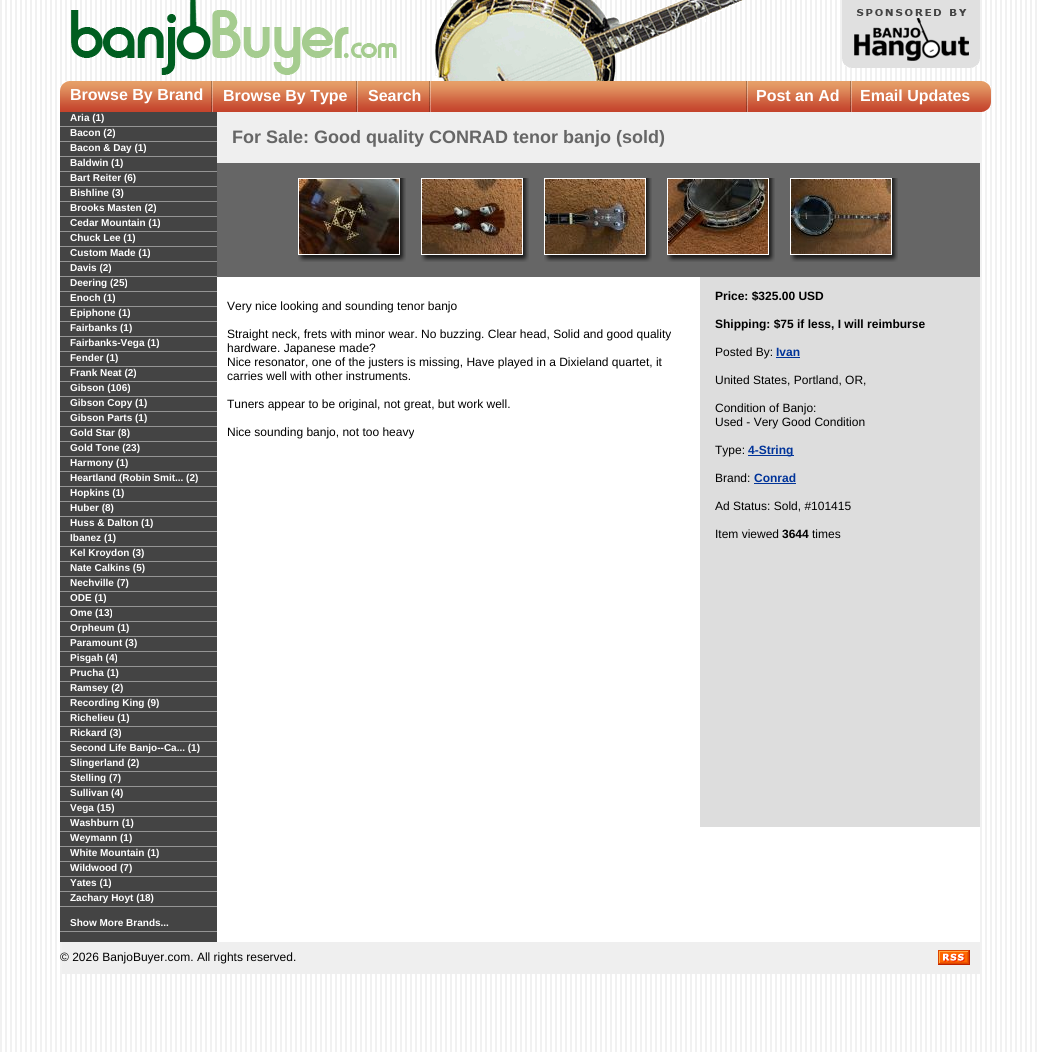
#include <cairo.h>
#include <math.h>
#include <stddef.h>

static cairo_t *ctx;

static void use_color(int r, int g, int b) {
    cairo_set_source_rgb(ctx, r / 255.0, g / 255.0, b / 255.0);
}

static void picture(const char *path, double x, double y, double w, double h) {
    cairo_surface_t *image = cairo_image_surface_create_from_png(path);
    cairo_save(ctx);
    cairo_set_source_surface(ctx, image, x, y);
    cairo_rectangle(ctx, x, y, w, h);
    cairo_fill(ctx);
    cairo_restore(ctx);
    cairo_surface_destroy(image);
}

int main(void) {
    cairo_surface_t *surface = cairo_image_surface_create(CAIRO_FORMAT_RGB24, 1040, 1052);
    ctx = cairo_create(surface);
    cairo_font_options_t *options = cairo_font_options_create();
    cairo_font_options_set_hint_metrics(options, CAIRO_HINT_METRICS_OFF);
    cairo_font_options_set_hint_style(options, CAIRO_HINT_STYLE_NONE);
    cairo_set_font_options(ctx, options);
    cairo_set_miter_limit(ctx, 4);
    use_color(255, 255, 255);
    cairo_paint(ctx);
    picture("img1.png", 0, 0, 1040, 1052);
    picture("img2.png", 434, 0, 310, 81);
    picture("img3.png", 71, 0, 326, 75);
    picture("img4.png", 842, 0, 138, 68);
    picture("img5.png", 60, 81, 931, 31);
    picture("img6.png", 211, 81, 2, 31);
    cairo_select_font_face(ctx, "Liberation Sans", CAIRO_FONT_SLANT_NORMAL, CAIRO_FONT_WEIGHT_BOLD);
    cairo_set_font_size(ctx, 16);
    use_color(255, 255, 255);
    cairo_move_to(ctx, 70, 100);
    cairo_show_text(ctx, "Browse By Brand");
    picture("img6.png", 356, 81, 2, 31);
    cairo_move_to(ctx, 223, 101);
    cairo_show_text(ctx, "Browse By Type");
    picture("img6.png", 429, 81, 2, 31);
    cairo_move_to(ctx, 368, 101);
    cairo_show_text(ctx, "Search");
    picture("img6.png", 746, 81, 2, 31);
    cairo_move_to(ctx, 756, 101);
    cairo_show_text(ctx, "Post an Ad");
    picture("img6.png", 850, 81, 2, 31);
    cairo_move_to(ctx, 860, 101);
    cairo_show_text(ctx, "Email Updates");
    use_color(68, 68, 68);
    cairo_rectangle(ctx, 60, 112, 157, 830);
    cairo_fill(ctx);
    use_color(149, 149, 149);
    cairo_rectangle(ctx, 60, 126, 157, 1);
    cairo_fill(ctx);
    cairo_set_font_size(ctx, 10);
    use_color(255, 255, 255);
    cairo_move_to(ctx, 70, 121);
    cairo_show_text(ctx, "Aria (1)");
    use_color(149, 149, 149);
    cairo_rectangle(ctx, 60, 141, 157, 1);
    cairo_fill(ctx);
    use_color(255, 255, 255);
    cairo_move_to(ctx, 70, 136);
    cairo_show_text(ctx, "Bacon (2)");
    use_color(149, 149, 149);
    cairo_rectangle(ctx, 60, 156, 157, 1);
    cairo_fill(ctx);
    use_color(255, 255, 255);
    cairo_move_to(ctx, 70, 151);
    cairo_show_text(ctx, "Bacon & Day (1)");
    use_color(149, 149, 149);
    cairo_rectangle(ctx, 60, 171, 157, 1);
    cairo_fill(ctx);
    use_color(255, 255, 255);
    cairo_move_to(ctx, 70, 166);
    cairo_show_text(ctx, "Baldwin (1)");
    use_color(149, 149, 149);
    cairo_rectangle(ctx, 60, 186, 157, 1);
    cairo_fill(ctx);
    use_color(255, 255, 255);
    cairo_move_to(ctx, 70, 181);
    cairo_show_text(ctx, "Bart Reiter (6)");
    use_color(149, 149, 149);
    cairo_rectangle(ctx, 60, 201, 157, 1);
    cairo_fill(ctx);
    use_color(255, 255, 255);
    cairo_move_to(ctx, 70, 196);
    cairo_show_text(ctx, "Bishline (3)");
    use_color(149, 149, 149);
    cairo_rectangle(ctx, 60, 216, 157, 1);
    cairo_fill(ctx);
    use_color(255, 255, 255);
    cairo_move_to(ctx, 70, 211);
    cairo_show_text(ctx, "Brooks Masten (2)");
    use_color(149, 149, 149);
    cairo_rectangle(ctx, 60, 231, 157, 1);
    cairo_fill(ctx);
    use_color(255, 255, 255);
    cairo_move_to(ctx, 70, 226);
    cairo_show_text(ctx, "Cedar Mountain (1)");
    use_color(149, 149, 149);
    cairo_rectangle(ctx, 60, 246, 157, 1);
    cairo_fill(ctx);
    use_color(255, 255, 255);
    cairo_move_to(ctx, 70, 241);
    cairo_show_text(ctx, "Chuck Lee (1)");
    use_color(149, 149, 149);
    cairo_rectangle(ctx, 60, 261, 157, 1);
    cairo_fill(ctx);
    use_color(255, 255, 255);
    cairo_move_to(ctx, 70, 256);
    cairo_show_text(ctx, "Custom Made (1)");
    use_color(149, 149, 149);
    cairo_rectangle(ctx, 60, 276, 157, 1);
    cairo_fill(ctx);
    use_color(255, 255, 255);
    cairo_move_to(ctx, 70, 271);
    cairo_show_text(ctx, "Davis (2)");
    use_color(149, 149, 149);
    cairo_rectangle(ctx, 60, 291, 157, 1);
    cairo_fill(ctx);
    use_color(255, 255, 255);
    cairo_move_to(ctx, 70, 286);
    cairo_show_text(ctx, "Deering (25)");
    use_color(149, 149, 149);
    cairo_rectangle(ctx, 60, 306, 157, 1);
    cairo_fill(ctx);
    use_color(255, 255, 255);
    cairo_move_to(ctx, 70, 301);
    cairo_show_text(ctx, "Enoch (1)");
    use_color(149, 149, 149);
    cairo_rectangle(ctx, 60, 321, 157, 1);
    cairo_fill(ctx);
    use_color(255, 255, 255);
    cairo_move_to(ctx, 70, 316);
    cairo_show_text(ctx, "Epiphone (1)");
    use_color(149, 149, 149);
    cairo_rectangle(ctx, 60, 336, 157, 1);
    cairo_fill(ctx);
    use_color(255, 255, 255);
    cairo_move_to(ctx, 70, 331);
    cairo_show_text(ctx, "Fairbanks (1)");
    use_color(149, 149, 149);
    cairo_rectangle(ctx, 60, 351, 157, 1);
    cairo_fill(ctx);
    use_color(255, 255, 255);
    cairo_move_to(ctx, 70, 346);
    cairo_show_text(ctx, "Fairbanks-Vega (1)");
    use_color(149, 149, 149);
    cairo_rectangle(ctx, 60, 366, 157, 1);
    cairo_fill(ctx);
    use_color(255, 255, 255);
    cairo_move_to(ctx, 70, 361);
    cairo_show_text(ctx, "Fender (1)");
    use_color(149, 149, 149);
    cairo_rectangle(ctx, 60, 381, 157, 1);
    cairo_fill(ctx);
    use_color(255, 255, 255);
    cairo_move_to(ctx, 70, 376);
    cairo_show_text(ctx, "Frank Neat (2)");
    use_color(149, 149, 149);
    cairo_rectangle(ctx, 60, 396, 157, 1);
    cairo_fill(ctx);
    use_color(255, 255, 255);
    cairo_move_to(ctx, 70, 391);
    cairo_show_text(ctx, "Gibson (106)");
    use_color(149, 149, 149);
    cairo_rectangle(ctx, 60, 411, 157, 1);
    cairo_fill(ctx);
    use_color(255, 255, 255);
    cairo_move_to(ctx, 70, 406);
    cairo_show_text(ctx, "Gibson Copy (1)");
    use_color(149, 149, 149);
    cairo_rectangle(ctx, 60, 426, 157, 1);
    cairo_fill(ctx);
    use_color(255, 255, 255);
    cairo_move_to(ctx, 70, 421);
    cairo_show_text(ctx, "Gibson Parts (1)");
    use_color(149, 149, 149);
    cairo_rectangle(ctx, 60, 441, 157, 1);
    cairo_fill(ctx);
    use_color(255, 255, 255);
    cairo_move_to(ctx, 70, 436);
    cairo_show_text(ctx, "Gold Star (8)");
    use_color(149, 149, 149);
    cairo_rectangle(ctx, 60, 456, 157, 1);
    cairo_fill(ctx);
    use_color(255, 255, 255);
    cairo_move_to(ctx, 70, 451);
    cairo_show_text(ctx, "Gold Tone (23)");
    use_color(149, 149, 149);
    cairo_rectangle(ctx, 60, 471, 157, 1);
    cairo_fill(ctx);
    use_color(255, 255, 255);
    cairo_move_to(ctx, 70, 466);
    cairo_show_text(ctx, "Harmony (1)");
    use_color(149, 149, 149);
    cairo_rectangle(ctx, 60, 486, 157, 1);
    cairo_fill(ctx);
    use_color(255, 255, 255);
    cairo_move_to(ctx, 70, 481);
    cairo_show_text(ctx, "Heartland (Robin Smit... (2)");
    use_color(149, 149, 149);
    cairo_rectangle(ctx, 60, 501, 157, 1);
    cairo_fill(ctx);
    use_color(255, 255, 255);
    cairo_move_to(ctx, 70, 496);
    cairo_show_text(ctx, "Hopkins (1)");
    use_color(149, 149, 149);
    cairo_rectangle(ctx, 60, 516, 157, 1);
    cairo_fill(ctx);
    use_color(255, 255, 255);
    cairo_move_to(ctx, 70, 511);
    cairo_show_text(ctx, "Huber (8)");
    use_color(149, 149, 149);
    cairo_rectangle(ctx, 60, 531, 157, 1);
    cairo_fill(ctx);
    use_color(255, 255, 255);
    cairo_move_to(ctx, 70, 526);
    cairo_show_text(ctx, "Huss & Dalton (1)");
    use_color(149, 149, 149);
    cairo_rectangle(ctx, 60, 546, 157, 1);
    cairo_fill(ctx);
    use_color(255, 255, 255);
    cairo_move_to(ctx, 70, 541);
    cairo_show_text(ctx, "Ibanez (1)");
    use_color(149, 149, 149);
    cairo_rectangle(ctx, 60, 561, 157, 1);
    cairo_fill(ctx);
    use_color(255, 255, 255);
    cairo_move_to(ctx, 70, 556);
    cairo_show_text(ctx, "Kel Kroydon (3)");
    use_color(149, 149, 149);
    cairo_rectangle(ctx, 60, 576, 157, 1);
    cairo_fill(ctx);
    use_color(255, 255, 255);
    cairo_move_to(ctx, 70, 571);
    cairo_show_text(ctx, "Nate Calkins (5)");
    use_color(149, 149, 149);
    cairo_rectangle(ctx, 60, 591, 157, 1);
    cairo_fill(ctx);
    use_color(255, 255, 255);
    cairo_move_to(ctx, 70, 586);
    cairo_show_text(ctx, "Nechville (7)");
    use_color(149, 149, 149);
    cairo_rectangle(ctx, 60, 606, 157, 1);
    cairo_fill(ctx);
    use_color(255, 255, 255);
    cairo_move_to(ctx, 70, 601);
    cairo_show_text(ctx, "ODE (1)");
    use_color(149, 149, 149);
    cairo_rectangle(ctx, 60, 621, 157, 1);
    cairo_fill(ctx);
    use_color(255, 255, 255);
    cairo_move_to(ctx, 70, 616);
    cairo_show_text(ctx, "Ome (13)");
    use_color(149, 149, 149);
    cairo_rectangle(ctx, 60, 636, 157, 1);
    cairo_fill(ctx);
    use_color(255, 255, 255);
    cairo_move_to(ctx, 70, 631);
    cairo_show_text(ctx, "Orpheum (1)");
    use_color(149, 149, 149);
    cairo_rectangle(ctx, 60, 651, 157, 1);
    cairo_fill(ctx);
    use_color(255, 255, 255);
    cairo_move_to(ctx, 70, 646);
    cairo_show_text(ctx, "Paramount (3)");
    use_color(149, 149, 149);
    cairo_rectangle(ctx, 60, 666, 157, 1);
    cairo_fill(ctx);
    use_color(255, 255, 255);
    cairo_move_to(ctx, 70, 661);
    cairo_show_text(ctx, "Pisgah (4)");
    use_color(149, 149, 149);
    cairo_rectangle(ctx, 60, 681, 157, 1);
    cairo_fill(ctx);
    use_color(255, 255, 255);
    cairo_move_to(ctx, 70, 676);
    cairo_show_text(ctx, "Prucha (1)");
    use_color(149, 149, 149);
    cairo_rectangle(ctx, 60, 696, 157, 1);
    cairo_fill(ctx);
    use_color(255, 255, 255);
    cairo_move_to(ctx, 70, 691);
    cairo_show_text(ctx, "Ramsey (2)");
    use_color(149, 149, 149);
    cairo_rectangle(ctx, 60, 711, 157, 1);
    cairo_fill(ctx);
    use_color(255, 255, 255);
    cairo_move_to(ctx, 70, 706);
    cairo_show_text(ctx, "Recording King (9)");
    use_color(149, 149, 149);
    cairo_rectangle(ctx, 60, 726, 157, 1);
    cairo_fill(ctx);
    use_color(255, 255, 255);
    cairo_move_to(ctx, 70, 721);
    cairo_show_text(ctx, "Richelieu (1)");
    use_color(149, 149, 149);
    cairo_rectangle(ctx, 60, 741, 157, 1);
    cairo_fill(ctx);
    use_color(255, 255, 255);
    cairo_move_to(ctx, 70, 736);
    cairo_show_text(ctx, "Rickard (3)");
    use_color(149, 149, 149);
    cairo_rectangle(ctx, 60, 756, 157, 1);
    cairo_fill(ctx);
    use_color(255, 255, 255);
    cairo_move_to(ctx, 70, 751);
    cairo_show_text(ctx, "Second Life Banjo--Ca... (1)");
    use_color(149, 149, 149);
    cairo_rectangle(ctx, 60, 771, 157, 1);
    cairo_fill(ctx);
    use_color(255, 255, 255);
    cairo_move_to(ctx, 70, 766);
    cairo_show_text(ctx, "Slingerland (2)");
    use_color(149, 149, 149);
    cairo_rectangle(ctx, 60, 786, 157, 1);
    cairo_fill(ctx);
    use_color(255, 255, 255);
    cairo_move_to(ctx, 70, 781);
    cairo_show_text(ctx, "Stelling (7)");
    use_color(149, 149, 149);
    cairo_rectangle(ctx, 60, 801, 157, 1);
    cairo_fill(ctx);
    use_color(255, 255, 255);
    cairo_move_to(ctx, 70, 796);
    cairo_show_text(ctx, "Sullivan (4)");
    use_color(149, 149, 149);
    cairo_rectangle(ctx, 60, 816, 157, 1);
    cairo_fill(ctx);
    use_color(255, 255, 255);
    cairo_move_to(ctx, 70, 811);
    cairo_show_text(ctx, "Vega (15)");
    use_color(149, 149, 149);
    cairo_rectangle(ctx, 60, 831, 157, 1);
    cairo_fill(ctx);
    use_color(255, 255, 255);
    cairo_move_to(ctx, 70, 826);
    cairo_show_text(ctx, "Washburn (1)");
    use_color(149, 149, 149);
    cairo_rectangle(ctx, 60, 846, 157, 1);
    cairo_fill(ctx);
    use_color(255, 255, 255);
    cairo_move_to(ctx, 70, 841);
    cairo_show_text(ctx, "Weymann (1)");
    use_color(149, 149, 149);
    cairo_rectangle(ctx, 60, 861, 157, 1);
    cairo_fill(ctx);
    use_color(255, 255, 255);
    cairo_move_to(ctx, 70, 856);
    cairo_show_text(ctx, "White Mountain (1)");
    use_color(149, 149, 149);
    cairo_rectangle(ctx, 60, 876, 157, 1);
    cairo_fill(ctx);
    use_color(255, 255, 255);
    cairo_move_to(ctx, 70, 871);
    cairo_show_text(ctx, "Wildwood (7)");
    use_color(149, 149, 149);
    cairo_rectangle(ctx, 60, 891, 157, 1);
    cairo_fill(ctx);
    use_color(255, 255, 255);
    cairo_move_to(ctx, 70, 886);
    cairo_show_text(ctx, "Yates (1)");
    use_color(149, 149, 149);
    cairo_rectangle(ctx, 60, 906, 157, 1);
    cairo_fill(ctx);
    use_color(255, 255, 255);
    cairo_move_to(ctx, 70, 901);
    cairo_show_text(ctx, "Zachary Hoyt (18)");
    use_color(149, 149, 149);
    cairo_rectangle(ctx, 60, 931, 157, 1);
    cairo_fill(ctx);
    use_color(255, 255, 255);
    cairo_move_to(ctx, 70, 926);
    cairo_show_text(ctx, "Show More Brands...");
    cairo_rectangle(ctx, 220, 277, 757, 665);
    cairo_fill(ctx);
    use_color(239, 239, 239);
    cairo_rectangle(ctx, 217, 112, 763, 51);
    cairo_fill(ctx);
    cairo_set_font_size(ctx, 18);
    use_color(102, 102, 102);
    cairo_move_to(ctx, 232, 143);
    cairo_show_text(ctx, "For Sale: Good quality CONRAD tenor banjo (sold)");
    cairo_rectangle(ctx, 217, 163, 763, 114);
    cairo_fill(ctx);
    picture("img7.png", 298, 178, 108, 84);
    cairo_rectangle(ctx, 298.5, 178.5, 101, 76);
    use_color(255, 255, 255);
    cairo_set_line_width(ctx, 1);
    cairo_stroke(ctx);
    picture("img8.png", 299, 179, 100, 75);
    picture("img7.png", 421, 178, 108, 84);
    cairo_rectangle(ctx, 421.5, 178.5, 101, 76);
    cairo_stroke(ctx);
    picture("img9.png", 422, 179, 100, 75);
    picture("img7.png", 544, 178, 108, 84);
    cairo_rectangle(ctx, 544.5, 178.5, 101, 76);
    cairo_stroke(ctx);
    picture("img10.png", 545, 179, 100, 75);
    picture("img7.png", 667, 178, 108, 84);
    cairo_rectangle(ctx, 667.5, 178.5, 101, 76);
    cairo_stroke(ctx);
    picture("img11.png", 668, 179, 100, 75);
    picture("img7.png", 790, 178, 108, 84);
    cairo_rectangle(ctx, 790.5, 178.5, 101, 76);
    cairo_stroke(ctx);
    picture("img12.png", 791, 179, 100, 75);
    cairo_select_font_face(ctx, "Liberation Sans", CAIRO_FONT_SLANT_NORMAL, CAIRO_FONT_WEIGHT_NORMAL);
    cairo_set_font_size(ctx, 12);
    use_color(0, 0, 0);
    cairo_move_to(ctx, 227, 310);
    cairo_show_text(ctx, "Very nice looking and sounding tenor banjo");
    cairo_move_to(ctx, 227, 338);
    cairo_show_text(ctx, "Straight neck, frets with minor wear. No buzzing. Clear head, Solid and good quality");
    cairo_move_to(ctx, 227, 352);
    cairo_show_text(ctx, "hardware. Japanese made?");
    cairo_move_to(ctx, 227, 366);
    cairo_show_text(ctx, "Nice resonator, one of the justers is missing, Have played in a Dixieland quartet, it");
    cairo_move_to(ctx, 227, 380);
    cairo_show_text(ctx, "carries well with other instruments.");
    cairo_move_to(ctx, 227, 408);
    cairo_show_text(ctx, "Tuners appear to be original, not great, but work well.");
    cairo_move_to(ctx, 227, 436);
    cairo_show_text(ctx, "Nice sounding banjo, not too heavy");
    use_color(221, 221, 221);
    cairo_rectangle(ctx, 700, 277, 280, 550);
    cairo_fill(ctx);
    cairo_select_font_face(ctx, "Liberation Sans", CAIRO_FONT_SLANT_NORMAL, CAIRO_FONT_WEIGHT_BOLD);
    use_color(0, 0, 0);
    cairo_move_to(ctx, 715, 300);
    cairo_show_text(ctx, "Price: $325.00 USD");
    cairo_move_to(ctx, 715, 328);
    cairo_show_text(ctx, "Shipping: $75 if less, I will reimburse");
    cairo_select_font_face(ctx, "Liberation Sans", CAIRO_FONT_SLANT_NORMAL, CAIRO_FONT_WEIGHT_NORMAL);
    cairo_move_to(ctx, 715, 356);
    cairo_show_text(ctx, "Posted By:");
    cairo_select_font_face(ctx, "Liberation Sans", CAIRO_FONT_SLANT_NORMAL, CAIRO_FONT_WEIGHT_BOLD);
    use_color(0, 51, 153);
    cairo_move_to(ctx, 776, 356);
    cairo_show_text(ctx, "Ivan");
    cairo_rectangle(ctx, 776, 357, 24, 1);
    cairo_fill(ctx);
    cairo_select_font_face(ctx, "Liberation Sans", CAIRO_FONT_SLANT_NORMAL, CAIRO_FONT_WEIGHT_NORMAL);
    use_color(0, 0, 0);
    cairo_move_to(ctx, 715, 384);
    cairo_show_text(ctx, "United States, Portland, OR,");
    cairo_move_to(ctx, 715, 412);
    cairo_show_text(ctx, "Condition of Banjo:");
    cairo_move_to(ctx, 715, 426);
    cairo_show_text(ctx, "Used - Very Good Condition");
    cairo_move_to(ctx, 715, 454);
    cairo_show_text(ctx, "Type:");
    use_color(0, 51, 153);
    cairo_rectangle(ctx, 748, 455, 46, 1);
    cairo_fill(ctx);
    cairo_select_font_face(ctx, "Liberation Sans", CAIRO_FONT_SLANT_NORMAL, CAIRO_FONT_WEIGHT_BOLD);
    cairo_move_to(ctx, 748, 454);
    cairo_show_text(ctx, "4-String");
    cairo_select_font_face(ctx, "Liberation Sans", CAIRO_FONT_SLANT_NORMAL, CAIRO_FONT_WEIGHT_NORMAL);
    use_color(0, 0, 0);
    cairo_move_to(ctx, 715, 482);
    cairo_show_text(ctx, "Brand:");
    cairo_select_font_face(ctx, "Liberation Sans", CAIRO_FONT_SLANT_NORMAL, CAIRO_FONT_WEIGHT_BOLD);
    use_color(0, 51, 153);
    cairo_move_to(ctx, 754, 482);
    cairo_show_text(ctx, "Conrad");
    cairo_rectangle(ctx, 754, 483, 42, 1);
    cairo_fill(ctx);
    cairo_select_font_face(ctx, "Liberation Sans", CAIRO_FONT_SLANT_NORMAL, CAIRO_FONT_WEIGHT_NORMAL);
    use_color(0, 0, 0);
    cairo_move_to(ctx, 715, 510);
    cairo_show_text(ctx, "Ad Status: Sold, #101415");
    cairo_move_to(ctx, 715, 538);
    cairo_show_text(ctx, "Item viewed");
    cairo_select_font_face(ctx, "Liberation Sans", CAIRO_FONT_SLANT_NORMAL, CAIRO_FONT_WEIGHT_BOLD);
    cairo_move_to(ctx, 782, 538);
    cairo_show_text(ctx, "3644");
    cairo_select_font_face(ctx, "Liberation Sans", CAIRO_FONT_SLANT_NORMAL, CAIRO_FONT_WEIGHT_NORMAL);
    cairo_move_to(ctx, 812, 538);
    cairo_show_text(ctx, "times");
    use_color(239, 239, 239);
    cairo_rectangle(ctx, 62, 942, 918, 32);
    cairo_fill(ctx);
    use_color(0, 0, 0);
    cairo_move_to(ctx, 60, 961);
    cairo_show_text(ctx, "© 2026 BanjoBuyer.com. All rights reserved.");
    picture("img13.png", 938, 950, 32, 15);
    cairo_surface_write_to_png(surface, "result.png");
    cairo_font_options_destroy(options);
    cairo_destroy(ctx);
    cairo_surface_destroy(surface);
    return 0;
}
